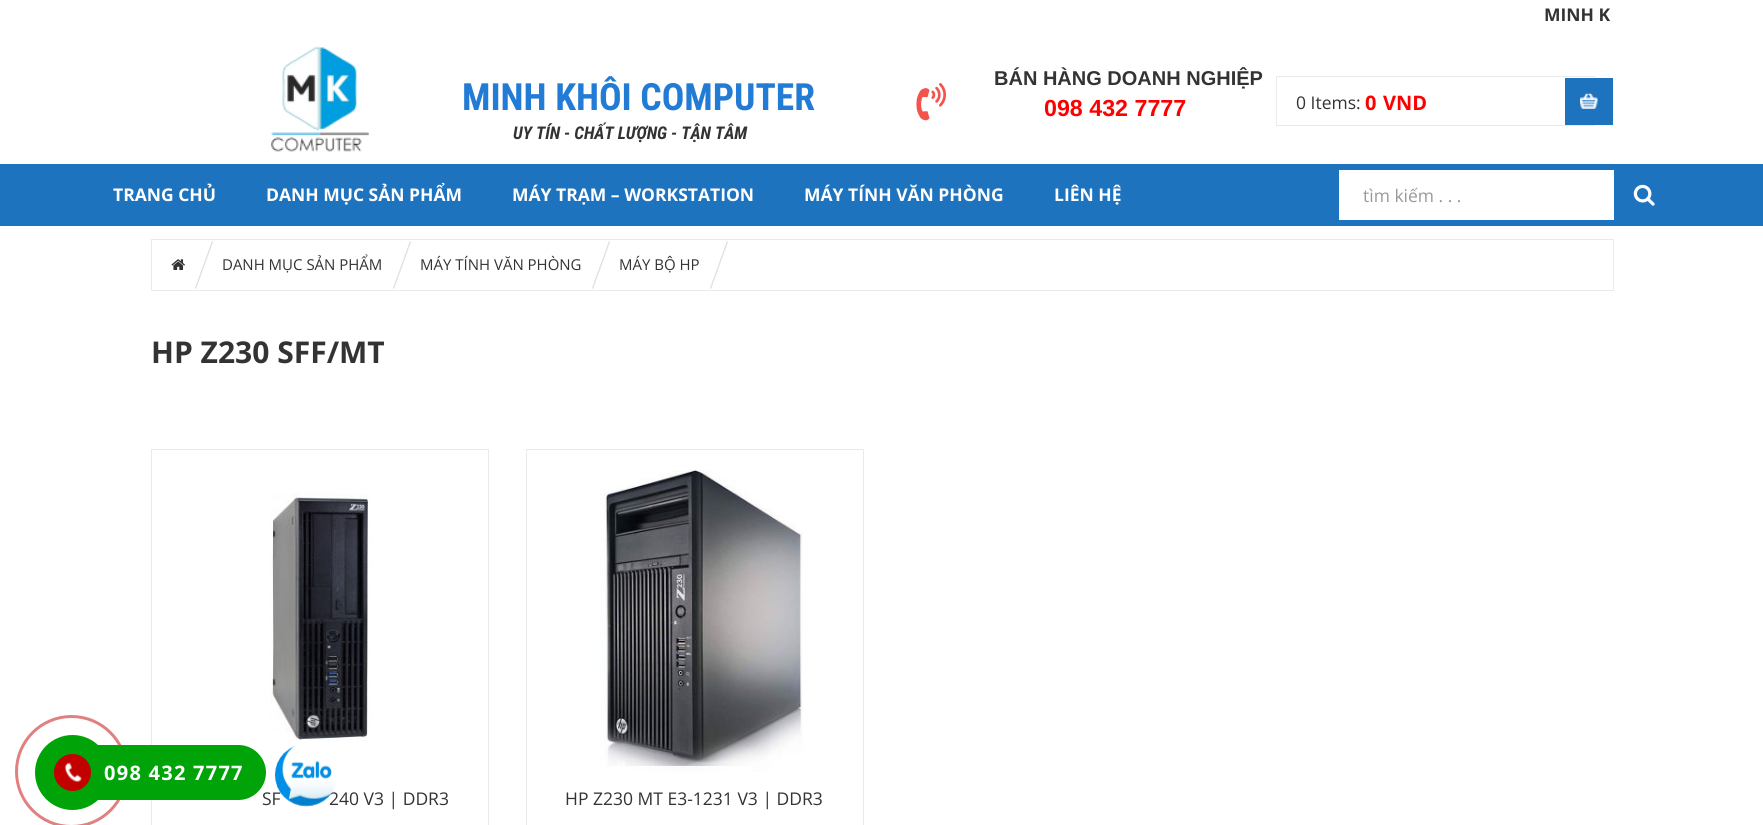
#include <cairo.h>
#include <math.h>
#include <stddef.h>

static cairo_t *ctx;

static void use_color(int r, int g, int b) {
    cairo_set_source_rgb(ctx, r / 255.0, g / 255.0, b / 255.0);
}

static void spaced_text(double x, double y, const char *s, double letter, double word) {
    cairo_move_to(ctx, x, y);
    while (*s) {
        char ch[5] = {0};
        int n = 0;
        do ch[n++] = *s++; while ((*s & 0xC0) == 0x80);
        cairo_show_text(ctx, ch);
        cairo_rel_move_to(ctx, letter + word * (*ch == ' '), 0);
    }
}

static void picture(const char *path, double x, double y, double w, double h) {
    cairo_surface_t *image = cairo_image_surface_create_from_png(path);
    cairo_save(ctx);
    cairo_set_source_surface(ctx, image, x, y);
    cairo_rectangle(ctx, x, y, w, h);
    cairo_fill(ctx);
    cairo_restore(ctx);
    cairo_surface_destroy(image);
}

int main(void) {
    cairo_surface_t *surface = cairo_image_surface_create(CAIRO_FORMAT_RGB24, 1763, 825);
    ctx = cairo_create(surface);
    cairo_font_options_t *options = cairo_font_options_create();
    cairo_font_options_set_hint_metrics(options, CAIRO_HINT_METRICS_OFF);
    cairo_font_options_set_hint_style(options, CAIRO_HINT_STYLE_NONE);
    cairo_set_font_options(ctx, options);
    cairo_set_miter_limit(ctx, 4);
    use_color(255, 255, 255);
    cairo_paint(ctx);
    cairo_select_font_face(ctx, "Open Sans", CAIRO_FONT_SLANT_NORMAL, CAIRO_FONT_WEIGHT_BOLD);
    cairo_set_font_size(ctx, 17.5);
    use_color(51, 51, 51);
    cairo_move_to(ctx, 1544, 21);
    cairo_show_text(ctx, "MINH K");
    picture("img1.png", 271, 46, 99, 106);
    cairo_select_font_face(ctx, "Roboto Condensed", CAIRO_FONT_SLANT_NORMAL, CAIRO_FONT_WEIGHT_BOLD);
    cairo_set_font_size(ctx, 37.5);
    use_color(34, 124, 214);
    cairo_move_to(ctx, 462, 110);
    cairo_show_text(ctx, "MINH KHÔI COMPUTER");
    cairo_select_font_face(ctx, "Roboto Condensed", CAIRO_FONT_SLANT_ITALIC, CAIRO_FONT_WEIGHT_BOLD);
    cairo_set_font_size(ctx, 17.5);
    use_color(51, 51, 51);
    cairo_move_to(ctx, 513, 139);
    cairo_show_text(ctx, "UY TÍN - CHẤT LƯỢNG - TẬN TÂM");
    picture("img2.png", 916, 83, 30, 38);
    cairo_select_font_face(ctx, "Liberation Sans", CAIRO_FONT_SLANT_NORMAL, CAIRO_FONT_WEIGHT_BOLD);
    cairo_set_font_size(ctx, 20);
    cairo_move_to(ctx, 994, 85);
    cairo_show_text(ctx, "BÁN HÀNG DOANH NGHIỆP");
    cairo_set_font_size(ctx, 23.25);
    use_color(255, 0, 0);
    cairo_move_to(ctx, 1044, 116);
    cairo_show_text(ctx, "098 432 7777");
    cairo_rectangle(ctx, 1276.5, 76.5, 318, 49);
    use_color(234, 234, 234);
    cairo_set_line_width(ctx, 1);
    cairo_stroke(ctx);
    cairo_select_font_face(ctx, "Open Sans", CAIRO_FONT_SLANT_NORMAL, CAIRO_FONT_WEIGHT_NORMAL);
    cairo_set_font_size(ctx, 17.5);
    use_color(51, 51, 51);
    cairo_move_to(ctx, 1296, 109);
    cairo_show_text(ctx, "0 Items:");
    cairo_select_font_face(ctx, "Open Sans", CAIRO_FONT_SLANT_NORMAL, CAIRO_FONT_WEIGHT_BOLD);
    cairo_set_font_size(ctx, 20);
    use_color(255, 0, 0);
    cairo_move_to(ctx, 1365, 110);
    cairo_show_text(ctx, "0");
    cairo_move_to(ctx, 1383, 110);
    cairo_show_text(ctx, "VND");
    use_color(30, 115, 190);
    cairo_rectangle(ctx, 1565, 78, 48, 47);
    cairo_fill(ctx);
    picture("img3.png", 1580, 93, 18, 16);
    cairo_rectangle(ctx, 0, 164, 1763, 62);
    cairo_fill(ctx);
    cairo_set_font_size(ctx, 17.5);
    use_color(255, 255, 255);
    cairo_move_to(ctx, 113, 201);
    cairo_show_text(ctx, "TRANG CHỦ");
    cairo_move_to(ctx, 266, 201);
    cairo_show_text(ctx, "DANH MỤC SẢN PHẨM");
    cairo_move_to(ctx, 512, 201);
    cairo_show_text(ctx, "MÁY TRẠM – WORKSTATION");
    cairo_move_to(ctx, 804, 201);
    cairo_show_text(ctx, "MÁY TÍNH VĂN PHÒNG");
    cairo_move_to(ctx, 1054, 201);
    cairo_show_text(ctx, "LIÊN HỆ");
    cairo_rectangle(ctx, 1339, 170, 275, 50);
    cairo_fill(ctx);
    cairo_select_font_face(ctx, "Open Sans", CAIRO_FONT_SLANT_NORMAL, CAIRO_FONT_WEIGHT_NORMAL);
    use_color(153, 153, 153);
    cairo_move_to(ctx, 1363, 202);
    cairo_show_text(ctx, "tìm kiếm . . .");
    picture("img4.png", 1633, 184, 22, 22);
    cairo_rectangle(ctx, 151.5, 239.5, 1462, 51);
    use_color(234, 234, 234);
    cairo_stroke(ctx);
    picture("img5.png", 171, 259, 14, 11);
    use_color(224, 222, 222);
    cairo_new_path(ctx);
    cairo_move_to(ctx, 212, 241);
    cairo_line_to(ctx, 213, 242);
    cairo_line_to(ctx, 196, 289);
    cairo_line_to(ctx, 195, 288);
    cairo_close_path(ctx);
    cairo_fill(ctx);
    cairo_set_font_size(ctx, 15);
    use_color(51, 51, 51);
    cairo_move_to(ctx, 222, 270);
    cairo_show_text(ctx, "DANH MỤC SẢN PHẨM");
    use_color(224, 222, 222);
    cairo_new_path(ctx);
    cairo_move_to(ctx, 410, 241);
    cairo_line_to(ctx, 411, 242);
    cairo_line_to(ctx, 394, 289);
    cairo_line_to(ctx, 393, 288);
    cairo_close_path(ctx);
    cairo_fill(ctx);
    use_color(51, 51, 51);
    cairo_move_to(ctx, 420, 270);
    cairo_show_text(ctx, "MÁY TÍNH VĂN PHÒNG");
    use_color(224, 222, 222);
    cairo_new_path(ctx);
    cairo_move_to(ctx, 609, 241);
    cairo_line_to(ctx, 610, 242);
    cairo_line_to(ctx, 593, 289);
    cairo_line_to(ctx, 592, 288);
    cairo_close_path(ctx);
    cairo_fill(ctx);
    use_color(51, 51, 51);
    cairo_move_to(ctx, 619, 270);
    cairo_show_text(ctx, "MÁY BỘ HP");
    use_color(224, 222, 222);
    cairo_new_path(ctx);
    cairo_move_to(ctx, 727, 241);
    cairo_line_to(ctx, 728, 242);
    cairo_line_to(ctx, 711, 289);
    cairo_line_to(ctx, 710, 288);
    cairo_close_path(ctx);
    cairo_fill(ctx);
    cairo_select_font_face(ctx, "Open Sans", CAIRO_FONT_SLANT_NORMAL, CAIRO_FONT_WEIGHT_BOLD);
    cairo_set_font_size(ctx, 30);
    use_color(51, 51, 51);
    cairo_move_to(ctx, 151, 363);
    cairo_show_text(ctx, "HP Z230 SFF/MT");
    cairo_rectangle(ctx, 151.5, 449.5, 337, 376);
    use_color(234, 234, 234);
    cairo_stroke(ctx);
    picture("img6.png", 270, 493, 102, 248);
    cairo_select_font_face(ctx, "Open Sans", CAIRO_FONT_SLANT_NORMAL, CAIRO_FONT_WEIGHT_NORMAL);
    cairo_set_font_size(ctx, 17.5);
    use_color(51, 51, 51);
    cairo_move_to(ctx, 262, 805);
    cairo_show_text(ctx, "SF");
    cairo_move_to(ctx, 329, 805);
    cairo_show_text(ctx, "240 V3 | DDR3");
    cairo_rectangle(ctx, 526.5, 449.5, 337, 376);
    use_color(234, 234, 234);
    cairo_stroke(ctx);
    picture("img7.png", 600, 469, 203, 304);
    cairo_set_source_rgba(ctx, 1, 1, 1, 0.9);
    cairo_rectangle(ctx, 608, 766, 143, 7);
    cairo_fill(ctx);
    use_color(51, 51, 51);
    cairo_move_to(ctx, 565, 805);
    cairo_show_text(ctx, "HP Z230 MT E3-1231 V3 | DDR3");
    cairo_new_path(ctx);
    cairo_arc(ctx, 71.5, 771.5, 55, 0, 2 * M_PI);
    use_color(225, 128, 128);
    cairo_set_line_width(ctx, 3);
    cairo_stroke(ctx);
    use_color(0, 163, 8);
    cairo_arc(ctx, 72.5, 772.5, 37.5, 0, 2 * M_PI);
    cairo_fill(ctx);
    use_color(194, 0, 0);
    cairo_arc(ctx, 72.5, 772.5, 18.5, 0, 2 * M_PI);
    cairo_fill(ctx);
    picture("img8.png", 64, 762, 18, 21);
    use_color(0, 163, 8);
    cairo_new_path(ctx);
    cairo_move_to(ctx, 98, 745);
    cairo_line_to(ctx, 238.5, 745);
    cairo_curve_to(ctx, 253.5, 745, 266, 757.5, 266, 772.5);
    cairo_curve_to(ctx, 266, 787.5, 253.5, 800, 238.5, 800);
    cairo_line_to(ctx, 98, 800);
    cairo_close_path(ctx);
    cairo_fill(ctx);
    cairo_select_font_face(ctx, "Open Sans", CAIRO_FONT_SLANT_NORMAL, CAIRO_FONT_WEIGHT_BOLD);
    cairo_set_font_size(ctx, 20);
    use_color(255, 255, 255);
    spaced_text(104, 780, "098 432 7777", 1.25, 0);
    picture("img9.png", 275, 745, 61, 62);
    cairo_surface_write_to_png(surface, "result.png");
    cairo_font_options_destroy(options);
    cairo_destroy(ctx);
    cairo_surface_destroy(surface);
    return 0;
}
